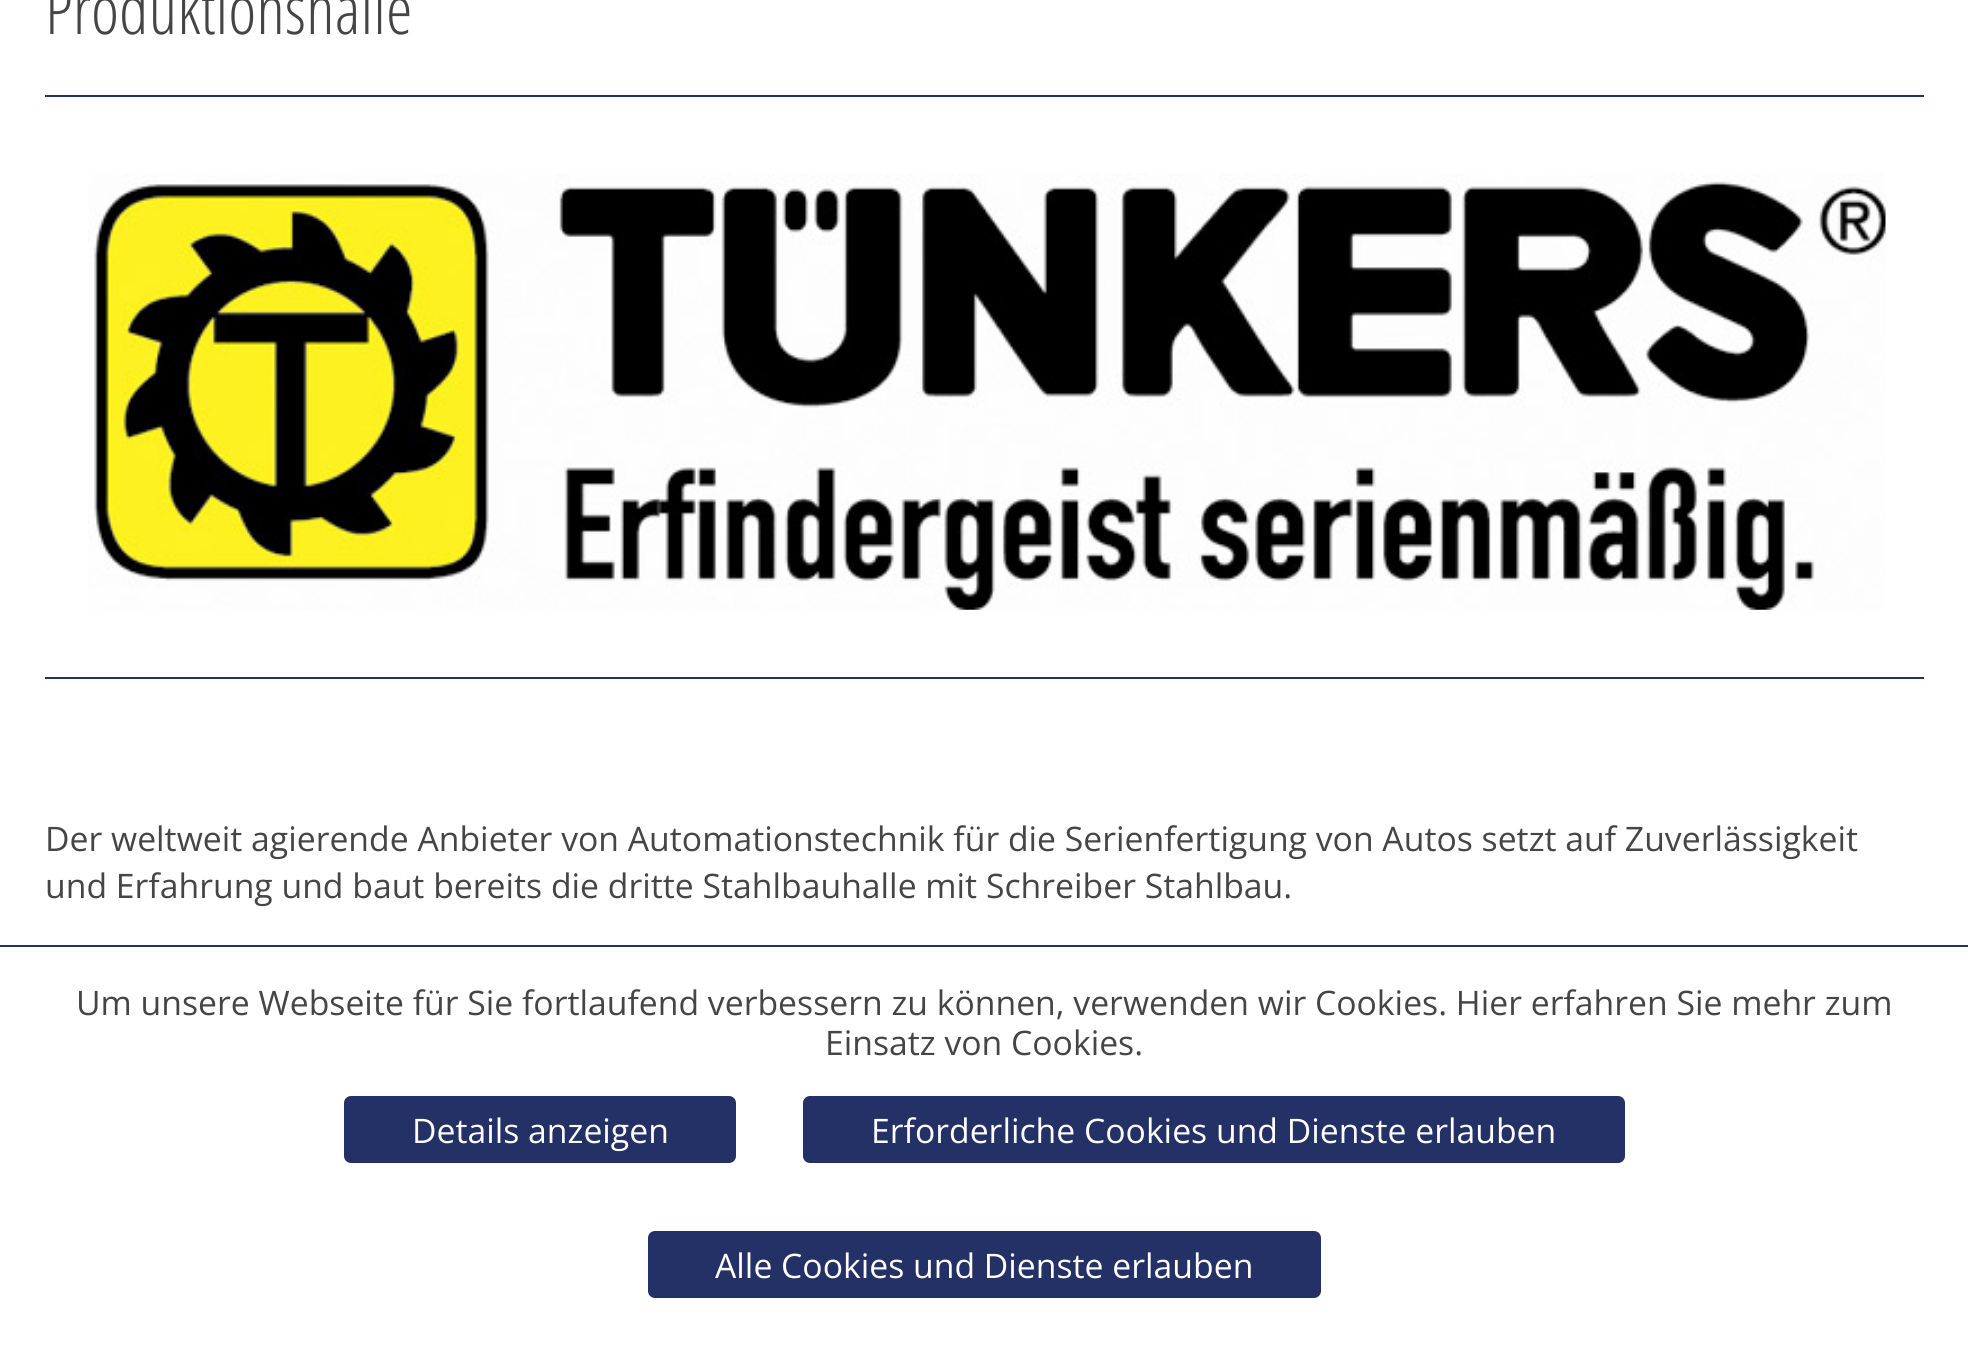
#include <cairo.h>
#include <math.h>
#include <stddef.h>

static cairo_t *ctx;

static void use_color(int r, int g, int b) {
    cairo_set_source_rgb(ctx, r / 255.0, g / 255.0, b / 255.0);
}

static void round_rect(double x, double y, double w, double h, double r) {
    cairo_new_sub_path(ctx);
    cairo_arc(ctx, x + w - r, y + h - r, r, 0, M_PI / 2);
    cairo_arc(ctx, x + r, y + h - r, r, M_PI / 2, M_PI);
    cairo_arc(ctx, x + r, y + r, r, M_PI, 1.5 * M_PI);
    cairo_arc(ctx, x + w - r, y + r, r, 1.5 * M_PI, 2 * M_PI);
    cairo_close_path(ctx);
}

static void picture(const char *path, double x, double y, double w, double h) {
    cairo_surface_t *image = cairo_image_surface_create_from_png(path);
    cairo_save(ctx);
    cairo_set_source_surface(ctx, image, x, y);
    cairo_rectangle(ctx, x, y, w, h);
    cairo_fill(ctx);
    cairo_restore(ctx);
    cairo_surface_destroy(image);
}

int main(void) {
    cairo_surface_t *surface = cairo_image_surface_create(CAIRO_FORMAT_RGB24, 1968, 1365);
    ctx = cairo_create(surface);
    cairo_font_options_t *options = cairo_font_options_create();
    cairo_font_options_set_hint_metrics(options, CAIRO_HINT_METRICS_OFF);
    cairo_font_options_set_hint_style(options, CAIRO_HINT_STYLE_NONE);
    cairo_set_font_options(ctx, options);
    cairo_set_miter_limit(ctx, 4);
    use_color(255, 255, 255);
    cairo_paint(ctx);
    use_color(36, 49, 102);
    cairo_rectangle(ctx, 45, 95, 1879, 2);
    cairo_fill(ctx);
    cairo_select_font_face(ctx, "Open Sans Condensed Light", CAIRO_FONT_SLANT_NORMAL, CAIRO_FONT_WEIGHT_NORMAL);
    cairo_set_font_size(ctx, 67.5);
    use_color(69, 69, 69);
    cairo_move_to(ctx, 45, 34);
    cairo_show_text(ctx, "Produktionshalle");
    use_color(36, 49, 102);
    cairo_rectangle(ctx, 45, 677, 1879, 2);
    cairo_fill(ctx);
    picture("img1.png", 88, 173, 1798, 437);
    cairo_select_font_face(ctx, "Open Sans", CAIRO_FONT_SLANT_NORMAL, CAIRO_FONT_WEIGHT_NORMAL);
    cairo_set_font_size(ctx, 33.75);
    use_color(69, 69, 69);
    cairo_move_to(ctx, 45, 851);
    cairo_show_text(ctx, "Der weltweit agierende Anbieter von Automationstechnik für die Serienfertigung von Autos setzt auf Zuverlässigkeit");
    cairo_move_to(ctx, 45, 898);
    cairo_show_text(ctx, "und Erfahrung und baut bereits die dritte Stahlbauhalle mit Schreiber Stahlbau.");
    use_color(36, 49, 102);
    cairo_rectangle(ctx, 0, 945, 1968, 2);
    cairo_fill(ctx);
    use_color(69, 69, 69);
    cairo_move_to(ctx, 76, 1015);
    cairo_show_text(ctx, "Um unsere Webseite für Sie fortlaufend verbessern zu können, verwenden wir Cookies. Hier erfahren Sie mehr zum");
    cairo_move_to(ctx, 825, 1055);
    cairo_show_text(ctx, "Einsatz von Cookies.");
    use_color(36, 49, 102);
    round_rect(344, 1096, 392, 67, 7);
    cairo_fill(ctx);
    use_color(255, 255, 255);
    cairo_move_to(ctx, 412, 1143);
    cairo_show_text(ctx, "Details anzeigen");
    use_color(36, 49, 102);
    round_rect(803, 1096, 822, 67, 7);
    cairo_fill(ctx);
    use_color(255, 255, 255);
    cairo_move_to(ctx, 871, 1143);
    cairo_show_text(ctx, "Erforderliche Cookies und Dienste erlauben");
    use_color(36, 49, 102);
    round_rect(648, 1231, 673, 67, 7);
    cairo_fill(ctx);
    use_color(255, 255, 255);
    cairo_move_to(ctx, 715, 1278);
    cairo_show_text(ctx, "Alle Cookies und Dienste erlauben");
    cairo_surface_write_to_png(surface, "result.png");
    cairo_font_options_destroy(options);
    cairo_destroy(ctx);
    cairo_surface_destroy(surface);
    return 0;
}
